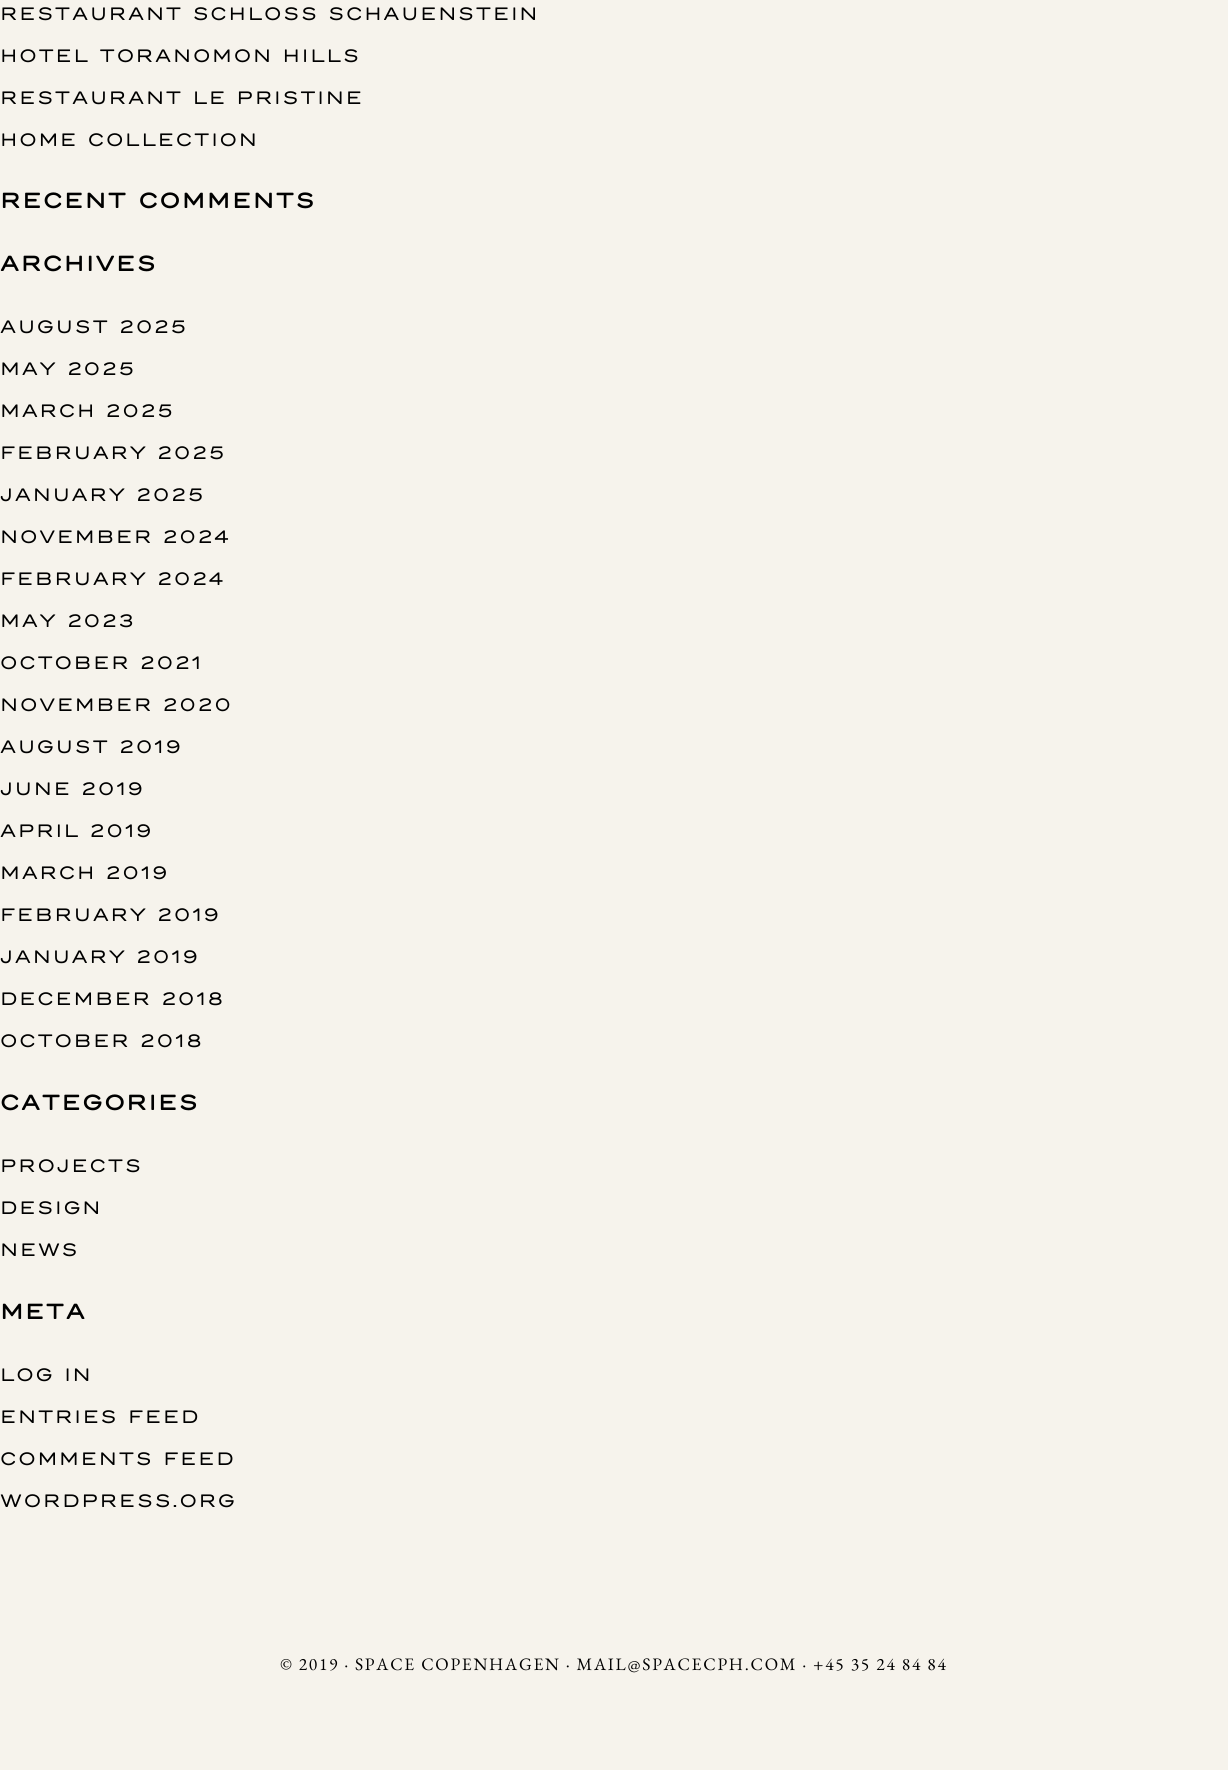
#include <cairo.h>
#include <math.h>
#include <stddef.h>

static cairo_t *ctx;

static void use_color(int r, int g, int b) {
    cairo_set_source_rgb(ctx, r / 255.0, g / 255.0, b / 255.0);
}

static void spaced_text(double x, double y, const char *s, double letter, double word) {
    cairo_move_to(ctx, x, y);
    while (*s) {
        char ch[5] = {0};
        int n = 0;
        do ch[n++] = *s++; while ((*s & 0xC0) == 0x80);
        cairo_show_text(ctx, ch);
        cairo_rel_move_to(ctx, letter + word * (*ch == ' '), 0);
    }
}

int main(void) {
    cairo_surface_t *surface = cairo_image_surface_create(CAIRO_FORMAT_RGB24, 1228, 1770);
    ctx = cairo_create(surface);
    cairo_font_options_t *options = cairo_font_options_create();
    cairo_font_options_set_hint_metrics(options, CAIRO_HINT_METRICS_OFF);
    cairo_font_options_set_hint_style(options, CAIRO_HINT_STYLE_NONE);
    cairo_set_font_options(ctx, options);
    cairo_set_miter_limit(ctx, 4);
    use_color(246, 243, 236);
    cairo_paint(ctx);
    cairo_select_font_face(ctx, "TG", CAIRO_FONT_SLANT_NORMAL, CAIRO_FONT_WEIGHT_NORMAL);
    cairo_set_font_size(ctx, 17.5);
    use_color(0, 0, 0);
    spaced_text(0, 20, "RESTAURANT SCHLOSS SCHAUENSTEIN", 1.75, 0);
    spaced_text(0, 62, "HOTEL TORANOMON HILLS", 1.75, 0);
    spaced_text(0, 104, "RESTAURANT LE PRISTINE", 1.75, 0);
    spaced_text(0, 146, "HOME COLLECTION", 1.75, 0);
    cairo_select_font_face(ctx, "TG", CAIRO_FONT_SLANT_NORMAL, CAIRO_FONT_WEIGHT_BOLD);
    cairo_set_font_size(ctx, 20.5);
    spaced_text(0, 208, "RECENT COMMENTS", 1.75, 0);
    spaced_text(0, 271, "ARCHIVES", 1.75, 0);
    cairo_select_font_face(ctx, "TG", CAIRO_FONT_SLANT_NORMAL, CAIRO_FONT_WEIGHT_NORMAL);
    cairo_set_font_size(ctx, 17.5);
    spaced_text(0, 333, "AUGUST 2025", 1.75, 0);
    spaced_text(0, 375, "MAY 2025", 1.75, 0);
    spaced_text(0, 417, "MARCH 2025", 1.75, 0);
    spaced_text(0, 459, "FEBRUARY 2025", 1.75, 0);
    spaced_text(0, 501, "JANUARY 2025", 1.75, 0);
    spaced_text(0, 543, "NOVEMBER 2024", 1.75, 0);
    spaced_text(0, 585, "FEBRUARY 2024", 1.75, 0);
    spaced_text(0, 627, "MAY 2023", 1.75, 0);
    spaced_text(0, 669, "OCTOBER 2021", 1.75, 0);
    spaced_text(0, 711, "NOVEMBER 2020", 1.75, 0);
    spaced_text(0, 753, "AUGUST 2019", 1.75, 0);
    spaced_text(0, 795, "JUNE 2019", 1.75, 0);
    spaced_text(0, 837, "APRIL 2019", 1.75, 0);
    spaced_text(0, 879, "MARCH 2019", 1.75, 0);
    spaced_text(0, 921, "FEBRUARY 2019", 1.75, 0);
    spaced_text(0, 963, "JANUARY 2019", 1.75, 0);
    spaced_text(0, 1005, "DECEMBER 2018", 1.75, 0);
    spaced_text(0, 1047, "OCTOBER 2018", 1.75, 0);
    cairo_select_font_face(ctx, "TG", CAIRO_FONT_SLANT_NORMAL, CAIRO_FONT_WEIGHT_BOLD);
    cairo_set_font_size(ctx, 20.5);
    spaced_text(0, 1110, "CATEGORIES", 1.75, 0);
    cairo_select_font_face(ctx, "TG", CAIRO_FONT_SLANT_NORMAL, CAIRO_FONT_WEIGHT_NORMAL);
    cairo_set_font_size(ctx, 17.5);
    spaced_text(0, 1172, "PROJECTS", 1.75, 0);
    spaced_text(0, 1214, "DESIGN", 1.75, 0);
    spaced_text(0, 1256, "NEWS", 1.75, 0);
    cairo_select_font_face(ctx, "TG", CAIRO_FONT_SLANT_NORMAL, CAIRO_FONT_WEIGHT_BOLD);
    cairo_set_font_size(ctx, 20.5);
    spaced_text(0, 1319, "META", 1.75, 0);
    cairo_select_font_face(ctx, "TG", CAIRO_FONT_SLANT_NORMAL, CAIRO_FONT_WEIGHT_NORMAL);
    cairo_set_font_size(ctx, 17.5);
    spaced_text(0, 1381, "LOG IN", 1.75, 0);
    spaced_text(0, 1423, "ENTRIES FEED", 1.75, 0);
    spaced_text(0, 1465, "COMMENTS FEED", 1.75, 0);
    spaced_text(0, 1507, "WORDPRESS.ORG", 1.75, 0);
    cairo_select_font_face(ctx, "EB Garamond", CAIRO_FONT_SLANT_NORMAL, CAIRO_FONT_WEIGHT_NORMAL);
    spaced_text(280, 1670, "© 2019 · SPACE COPENHAGEN · MAIL@SPACECPH.COM · +45 35 24 84 84", 1.75, 0);
    cairo_surface_write_to_png(surface, "result.png");
    cairo_font_options_destroy(options);
    cairo_destroy(ctx);
    cairo_surface_destroy(surface);
    return 0;
}
